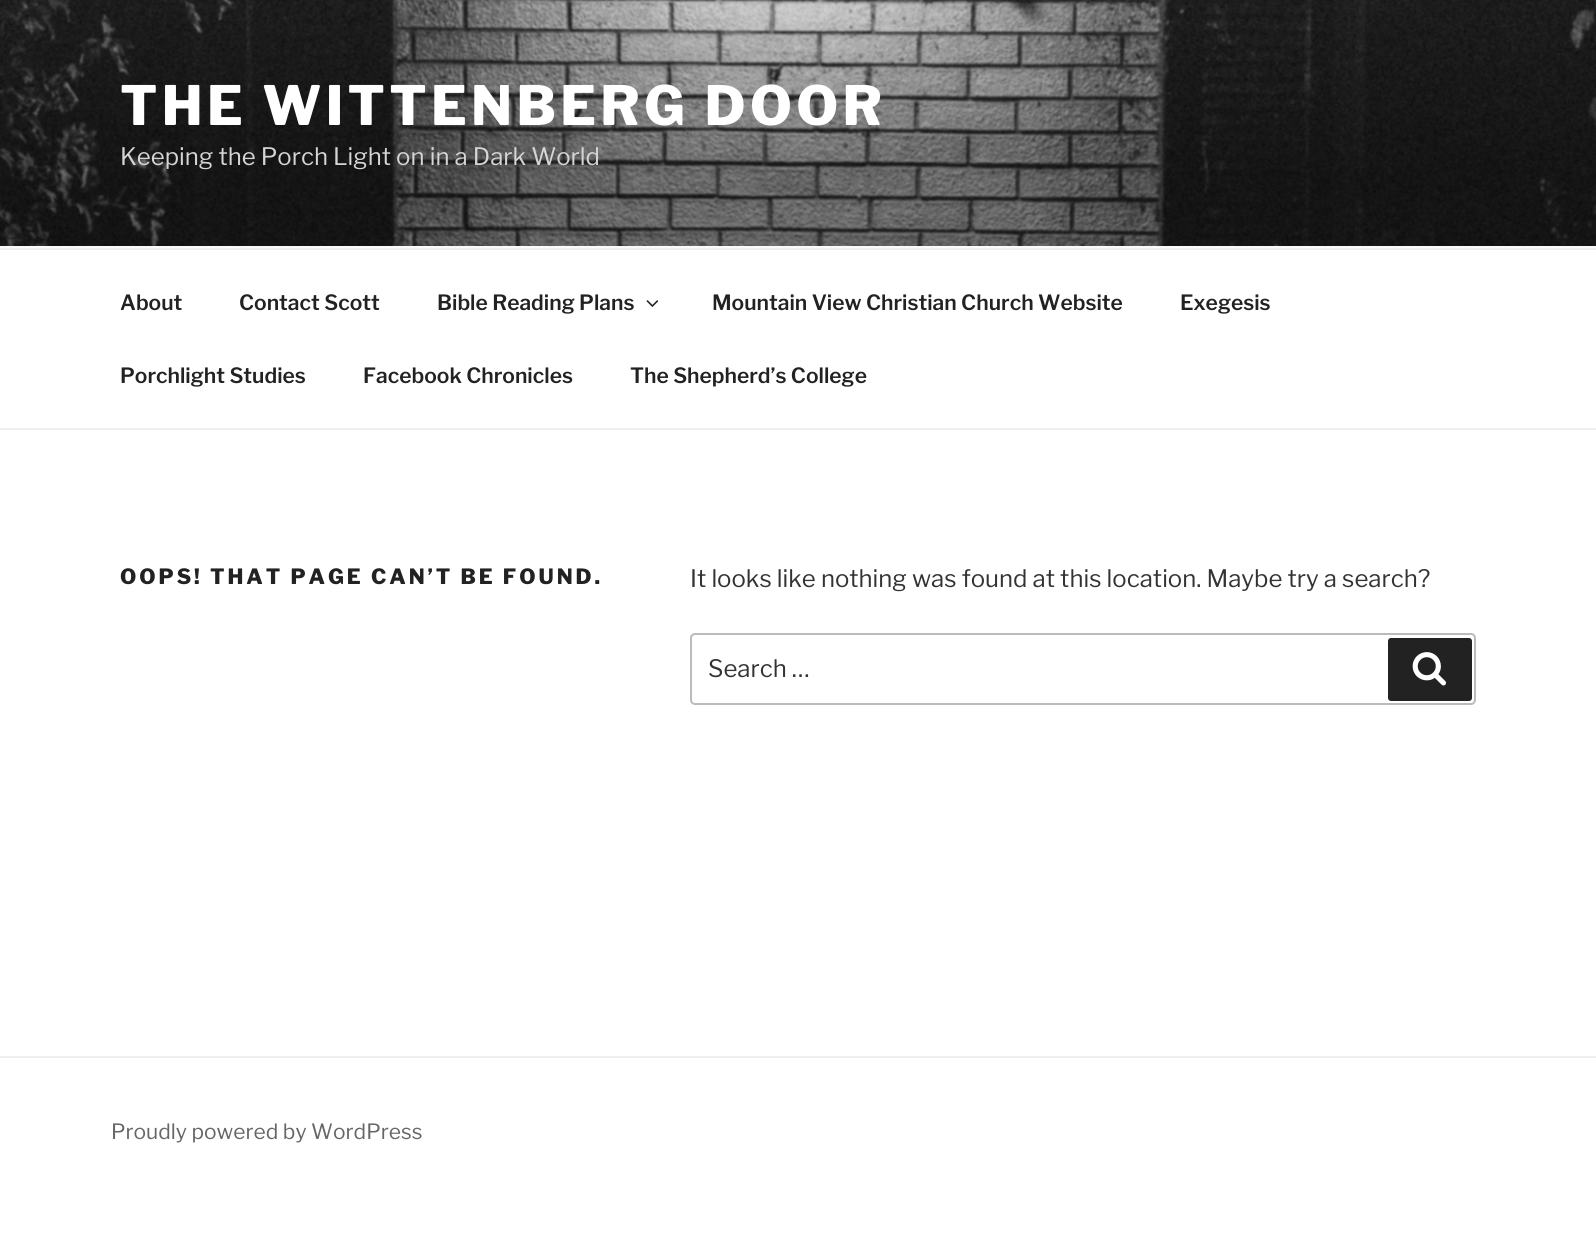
#include <cairo.h>
#include <math.h>
#include <stddef.h>

static cairo_t *ctx;

static void use_color(int r, int g, int b) {
    cairo_set_source_rgb(ctx, r / 255.0, g / 255.0, b / 255.0);
}

static void spaced_text(double x, double y, const char *s, double letter, double word) {
    cairo_move_to(ctx, x, y);
    while (*s) {
        char ch[5] = {0};
        int n = 0;
        do ch[n++] = *s++; while ((*s & 0xC0) == 0x80);
        cairo_show_text(ctx, ch);
        cairo_rel_move_to(ctx, letter + word * (*ch == ' '), 0);
    }
}

static void round_rect(double x, double y, double w, double h, double r) {
    cairo_new_sub_path(ctx);
    cairo_arc(ctx, x + w - r, y + h - r, r, 0, M_PI / 2);
    cairo_arc(ctx, x + r, y + h - r, r, M_PI / 2, M_PI);
    cairo_arc(ctx, x + r, y + r, r, M_PI, 1.5 * M_PI);
    cairo_arc(ctx, x + w - r, y + r, r, 1.5 * M_PI, 2 * M_PI);
    cairo_close_path(ctx);
}

static void picture(const char *path, double x, double y, double w, double h) {
    cairo_surface_t *image = cairo_image_surface_create_from_png(path);
    cairo_save(ctx);
    cairo_set_source_surface(ctx, image, x, y);
    cairo_rectangle(ctx, x, y, w, h);
    cairo_fill(ctx);
    cairo_restore(ctx);
    cairo_surface_destroy(image);
}

int main(void) {
    cairo_surface_t *surface = cairo_image_surface_create(CAIRO_FORMAT_RGB24, 1596, 1233);
    ctx = cairo_create(surface);
    cairo_font_options_t *options = cairo_font_options_create();
    cairo_font_options_set_hint_metrics(options, CAIRO_HINT_METRICS_OFF);
    cairo_font_options_set_hint_style(options, CAIRO_HINT_STYLE_NONE);
    cairo_set_font_options(ctx, options);
    cairo_set_miter_limit(ctx, 4);
    use_color(255, 255, 255);
    cairo_paint(ctx);
    use_color(250, 250, 250);
    cairo_rectangle(ctx, 0, 246, 1596, 2);
    cairo_fill(ctx);
    picture("img1.png", 0, 0, 1596, 246);
    cairo_select_font_face(ctx, "Libre Franklin Thin", CAIRO_FONT_SLANT_NORMAL, CAIRO_FONT_WEIGHT_NORMAL);
    cairo_set_font_size(ctx, 54);
    use_color(255, 255, 255);
    spaced_text(120, 125, "THE WITTENBERG DOOR", 4.3, 0);
    cairo_select_font_face(ctx, "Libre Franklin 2 Thin", CAIRO_FONT_SLANT_NORMAL, CAIRO_FONT_WEIGHT_NORMAL);
    cairo_set_font_size(ctx, 24);
    use_color(213, 213, 213);
    cairo_move_to(ctx, 120, 165);
    cairo_show_text(ctx, "Keeping the Porch Light on in a Dark World");
    use_color(238, 238, 238);
    cairo_rectangle(ctx, 0, 248, 1596, 2);
    cairo_fill(ctx);
    cairo_rectangle(ctx, 0, 428, 1596, 2);
    cairo_fill(ctx);
    cairo_select_font_face(ctx, "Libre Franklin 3 Thin", CAIRO_FONT_SLANT_NORMAL, CAIRO_FONT_WEIGHT_NORMAL);
    cairo_set_font_size(ctx, 21);
    use_color(34, 34, 34);
    cairo_move_to(ctx, 120, 310);
    cairo_show_text(ctx, "About");
    cairo_move_to(ctx, 239, 310);
    cairo_show_text(ctx, "Contact Scott");
    cairo_move_to(ctx, 437, 310);
    cairo_show_text(ctx, "Bible Reading Plans");
    picture("img2.png", 646, 300, 13, 7);
    cairo_move_to(ctx, 712, 310);
    cairo_show_text(ctx, "Mountain View Christian Church Website");
    cairo_move_to(ctx, 1180, 310);
    cairo_show_text(ctx, "Exegesis");
    cairo_move_to(ctx, 120, 383);
    cairo_show_text(ctx, "Porchlight Studies");
    cairo_move_to(ctx, 363, 383);
    cairo_show_text(ctx, "Facebook Chronicles");
    cairo_move_to(ctx, 630, 383);
    cairo_show_text(ctx, "The Shepherd’s College");
    cairo_select_font_face(ctx, "Libre Franklin Thin", CAIRO_FONT_SLANT_NORMAL, CAIRO_FONT_WEIGHT_NORMAL);
    spaced_text(120, 584, "OOPS! THAT PAGE CAN’T BE FOUND.", 2.95, 0);
    cairo_select_font_face(ctx, "Libre Franklin 2 Thin", CAIRO_FONT_SLANT_NORMAL, CAIRO_FONT_WEIGHT_NORMAL);
    cairo_set_font_size(ctx, 24);
    use_color(51, 51, 51);
    cairo_move_to(ctx, 690, 587);
    cairo_show_text(ctx, "It looks like nothing was found at this location. Maybe try a search?");
    round_rect(691, 634, 784, 70, 4);
    use_color(187, 187, 187);
    cairo_stroke(ctx);
    use_color(51, 51, 51);
    cairo_move_to(ctx, 708, 677);
    cairo_show_text(ctx, "Search …");
    use_color(34, 34, 34);
    round_rect(1388, 638, 84, 63, 3);
    cairo_fill(ctx);
    picture("img3.png", 1412, 652, 34, 34);
    use_color(238, 238, 238);
    cairo_rectangle(ctx, 0, 1056, 1596, 2);
    cairo_fill(ctx);
    cairo_set_font_size(ctx, 21);
    use_color(102, 102, 102);
    cairo_move_to(ctx, 111, 1139);
    cairo_show_text(ctx, "Proudly powered by WordPress");
    cairo_surface_write_to_png(surface, "result.png");
    cairo_font_options_destroy(options);
    cairo_destroy(ctx);
    cairo_surface_destroy(surface);
    return 0;
}
